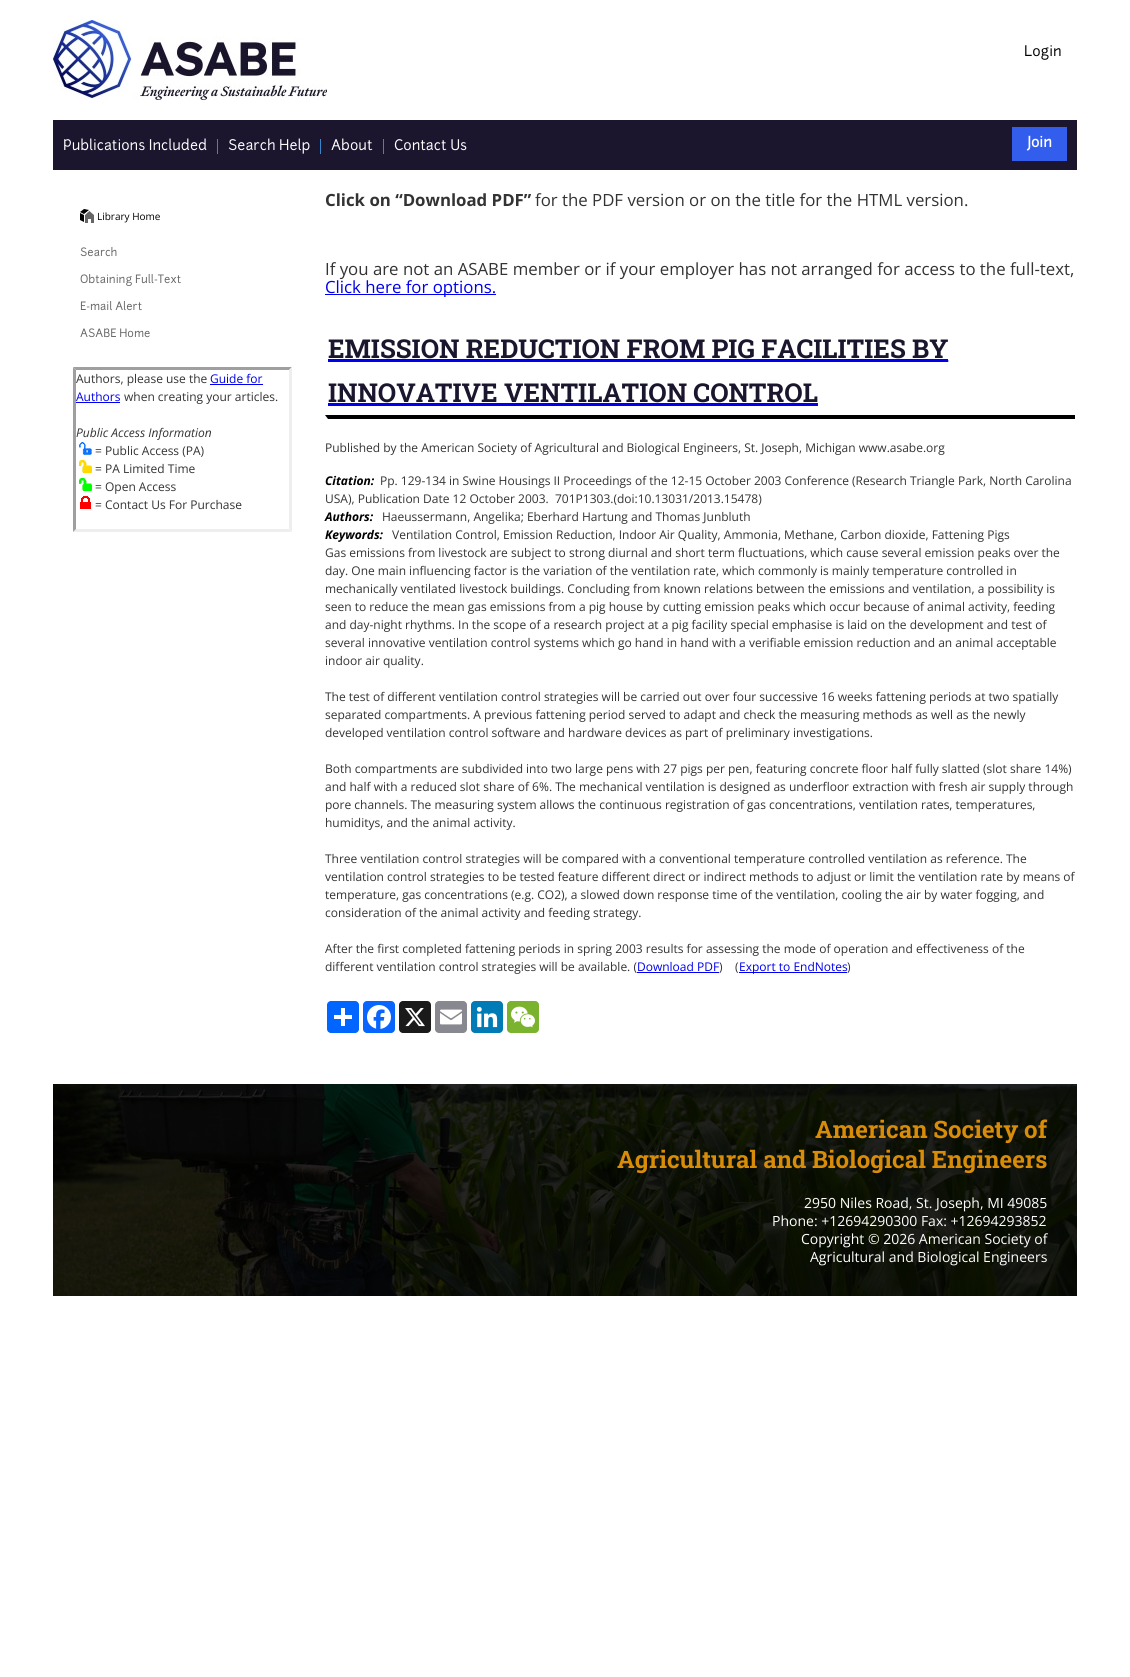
#include <cairo.h>
#include <math.h>
#include <stddef.h>

static cairo_t *ctx;

static void use_color(int r, int g, int b) {
    cairo_set_source_rgb(ctx, r / 255.0, g / 255.0, b / 255.0);
}

static void round_rect(double x, double y, double w, double h, double r) {
    cairo_new_sub_path(ctx);
    cairo_arc(ctx, x + w - r, y + h - r, r, 0, M_PI / 2);
    cairo_arc(ctx, x + r, y + h - r, r, M_PI / 2, M_PI);
    cairo_arc(ctx, x + r, y + r, r, M_PI, 1.5 * M_PI);
    cairo_arc(ctx, x + w - r, y + r, r, 1.5 * M_PI, 2 * M_PI);
    cairo_close_path(ctx);
}

static void picture(const char *path, double x, double y, double w, double h) {
    cairo_surface_t *image = cairo_image_surface_create_from_png(path);
    cairo_save(ctx);
    cairo_set_source_surface(ctx, image, x, y);
    cairo_rectangle(ctx, x, y, w, h);
    cairo_fill(ctx);
    cairo_restore(ctx);
    cairo_surface_destroy(image);
}

int main(void) {
    cairo_surface_t *surface = cairo_image_surface_create(CAIRO_FORMAT_RGB24, 1130, 1677);
    ctx = cairo_create(surface);
    cairo_font_options_t *options = cairo_font_options_create();
    cairo_font_options_set_hint_metrics(options, CAIRO_HINT_METRICS_OFF);
    cairo_font_options_set_hint_style(options, CAIRO_HINT_STYLE_NONE);
    cairo_set_font_options(ctx, options);
    cairo_set_miter_limit(ctx, 4);
    use_color(255, 255, 255);
    cairo_paint(ctx);
    picture("img1.png", 53, 20, 274, 80);
    cairo_select_font_face(ctx, "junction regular", CAIRO_FONT_SLANT_NORMAL, CAIRO_FONT_WEIGHT_NORMAL);
    cairo_set_font_size(ctx, 14);
    use_color(0, 0, 0);
    cairo_move_to(ctx, 1024, 56);
    cairo_show_text(ctx, "Login");
    use_color(27, 21, 45);
    cairo_rectangle(ctx, 53, 120, 1024, 50);
    cairo_fill(ctx);
    use_color(255, 255, 255);
    cairo_move_to(ctx, 63, 150);
    cairo_show_text(ctx, "Publications Included");
    cairo_move_to(ctx, 228, 150);
    cairo_show_text(ctx, "Search Help");
    use_color(54, 134, 205);
    cairo_rectangle(ctx, 217, 139, 1, 15);
    cairo_fill(ctx);
    use_color(255, 255, 255);
    cairo_move_to(ctx, 331, 150);
    cairo_show_text(ctx, "About");
    use_color(54, 134, 205);
    cairo_rectangle(ctx, 320, 139, 1, 15);
    cairo_fill(ctx);
    use_color(255, 255, 255);
    cairo_move_to(ctx, 394, 150);
    cairo_show_text(ctx, "Contact Us");
    use_color(54, 134, 205);
    cairo_rectangle(ctx, 383, 139, 1, 15);
    cairo_fill(ctx);
    use_color(51, 93, 237);
    cairo_rectangle(ctx, 1012, 127, 55, 34);
    cairo_fill(ctx);
    cairo_select_font_face(ctx, "junction regular", CAIRO_FONT_SLANT_NORMAL, CAIRO_FONT_WEIGHT_BOLD);
    use_color(255, 255, 255);
    cairo_move_to(ctx, 1027, 147);
    cairo_show_text(ctx, "Join");
    picture("img2.png", 80, 209, 14, 14);
    cairo_select_font_face(ctx, "Open Sans", CAIRO_FONT_SLANT_NORMAL, CAIRO_FONT_WEIGHT_NORMAL);
    cairo_set_font_size(ctx, 10);
    use_color(0, 0, 0);
    cairo_move_to(ctx, 97, 220);
    cairo_show_text(ctx, "Library Home");
    cairo_select_font_face(ctx, "junction regular", CAIRO_FONT_SLANT_NORMAL, CAIRO_FONT_WEIGHT_NORMAL);
    cairo_set_font_size(ctx, 11);
    use_color(102, 102, 102);
    cairo_move_to(ctx, 80, 256);
    cairo_show_text(ctx, "Search");
    cairo_move_to(ctx, 80, 283);
    cairo_show_text(ctx, "Obtaining Full-Text");
    cairo_move_to(ctx, 80, 310);
    cairo_show_text(ctx, "E-mail Alert");
    cairo_move_to(ctx, 80, 337);
    cairo_show_text(ctx, "ASABE Home");
    use_color(159, 159, 159);
    cairo_new_path(ctx);
    cairo_move_to(ctx, 73, 367);
    cairo_line_to(ctx, 292, 367);
    cairo_line_to(ctx, 289, 370);
    cairo_line_to(ctx, 76, 370);
    cairo_close_path(ctx);
    cairo_fill(ctx);
    use_color(238, 238, 238);
    cairo_new_path(ctx);
    cairo_move_to(ctx, 292, 367);
    cairo_line_to(ctx, 292, 532);
    cairo_line_to(ctx, 289, 529);
    cairo_line_to(ctx, 289, 370);
    cairo_close_path(ctx);
    cairo_fill(ctx);
    cairo_new_path(ctx);
    cairo_move_to(ctx, 292, 532);
    cairo_line_to(ctx, 73, 532);
    cairo_line_to(ctx, 76, 529);
    cairo_line_to(ctx, 289, 529);
    cairo_close_path(ctx);
    cairo_fill(ctx);
    use_color(159, 159, 159);
    cairo_new_path(ctx);
    cairo_move_to(ctx, 73, 532);
    cairo_line_to(ctx, 73, 367);
    cairo_line_to(ctx, 76, 370);
    cairo_line_to(ctx, 76, 529);
    cairo_close_path(ctx);
    cairo_fill(ctx);
    cairo_select_font_face(ctx, "Open Sans", CAIRO_FONT_SLANT_NORMAL, CAIRO_FONT_WEIGHT_NORMAL);
    cairo_set_font_size(ctx, 12);
    use_color(51, 51, 51);
    cairo_move_to(ctx, 76, 383);
    cairo_show_text(ctx, "Authors, please use the");
    use_color(0, 0, 238);
    cairo_move_to(ctx, 210, 383);
    cairo_show_text(ctx, "Guide for");
    cairo_rectangle(ctx, 210, 384, 53, 1);
    cairo_fill(ctx);
    cairo_move_to(ctx, 76, 401);
    cairo_show_text(ctx, "Authors");
    cairo_rectangle(ctx, 76, 402, 44, 1);
    cairo_fill(ctx);
    use_color(51, 51, 51);
    cairo_move_to(ctx, 124, 401);
    cairo_show_text(ctx, "when creating your articles.");
    cairo_select_font_face(ctx, "Open Sans", CAIRO_FONT_SLANT_ITALIC, CAIRO_FONT_WEIGHT_NORMAL);
    cairo_move_to(ctx, 76, 437);
    cairo_show_text(ctx, "Public Access Information");
    picture("img3.png", 79, 442, 13, 13);
    cairo_select_font_face(ctx, "Open Sans", CAIRO_FONT_SLANT_NORMAL, CAIRO_FONT_WEIGHT_NORMAL);
    cairo_move_to(ctx, 95, 455);
    cairo_show_text(ctx, "= Public Access (PA)");
    picture("img4.png", 79, 460, 13, 13);
    cairo_move_to(ctx, 95, 473);
    cairo_show_text(ctx, "= PA Limited Time");
    picture("img5.png", 79, 478, 13, 13);
    cairo_move_to(ctx, 95, 491);
    cairo_show_text(ctx, "= Open Access");
    picture("img6.png", 80, 496, 11, 13);
    cairo_move_to(ctx, 95, 509);
    cairo_show_text(ctx, "= Contact Us For Purchase");
    cairo_select_font_face(ctx, "Open Sans", CAIRO_FONT_SLANT_NORMAL, CAIRO_FONT_WEIGHT_BOLD);
    cairo_set_font_size(ctx, 16.8);
    cairo_move_to(ctx, 325, 206);
    cairo_show_text(ctx, "Click on “Download PDF”");
    cairo_select_font_face(ctx, "Open Sans", CAIRO_FONT_SLANT_NORMAL, CAIRO_FONT_WEIGHT_NORMAL);
    cairo_move_to(ctx, 535, 206);
    cairo_show_text(ctx, "for the PDF version or on the title for the HTML version.");
    cairo_move_to(ctx, 325, 275);
    cairo_show_text(ctx, "If you are not an ASABE member or if your employer has not arranged for access to the full-text,");
    use_color(0, 0, 238);
    cairo_rectangle(ctx, 325, 294, 171, 1);
    cairo_fill(ctx);
    cairo_move_to(ctx, 325, 293);
    cairo_show_text(ctx, "Click here for options.");
    picture("img7.png", 325, 360, 750, 59);
    cairo_select_font_face(ctx, "Roboto Slab", CAIRO_FONT_SLANT_NORMAL, CAIRO_FONT_WEIGHT_BOLD);
    cairo_set_font_size(ctx, 26);
    use_color(27, 21, 45);
    cairo_move_to(ctx, 328, 358);
    cairo_show_text(ctx, "EMISSION REDUCTION FROM PIG FACILITIES BY");
    use_color(0, 0, 238);
    cairo_rectangle(ctx, 328, 359, 620, 1);
    cairo_fill(ctx);
    use_color(27, 21, 45);
    cairo_move_to(ctx, 328, 402);
    cairo_show_text(ctx, "INNOVATIVE VENTILATION CONTROL");
    use_color(0, 0, 238);
    cairo_rectangle(ctx, 328, 403, 490, 1);
    cairo_fill(ctx);
    cairo_select_font_face(ctx, "Open Sans", CAIRO_FONT_SLANT_NORMAL, CAIRO_FONT_WEIGHT_NORMAL);
    cairo_set_font_size(ctx, 12);
    use_color(51, 51, 51);
    cairo_move_to(ctx, 325, 452);
    cairo_show_text(ctx, "Published by the American Society of Agricultural and Biological Engineers, St. Joseph, Michigan www.asabe.org");
    cairo_select_font_face(ctx, "Open Sans", CAIRO_FONT_SLANT_ITALIC, CAIRO_FONT_WEIGHT_BOLD);
    use_color(0, 0, 0);
    cairo_move_to(ctx, 325, 485);
    cairo_show_text(ctx, "Citation:");
    cairo_select_font_face(ctx, "Open Sans", CAIRO_FONT_SLANT_NORMAL, CAIRO_FONT_WEIGHT_NORMAL);
    use_color(51, 51, 51);
    cairo_move_to(ctx, 380, 485);
    cairo_show_text(ctx, "Pp. 129-134 in Swine Housings II Proceedings of the 12-15 October 2003 Conference (Research Triangle Park, North Carolina");
    cairo_move_to(ctx, 325, 503);
    cairo_show_text(ctx, "USA), Publication Date 12 October 2003.");
    cairo_move_to(ctx, 555, 503);
    cairo_show_text(ctx, "701P1303.(doi:10.13031/2013.15478)");
    cairo_select_font_face(ctx, "Open Sans", CAIRO_FONT_SLANT_ITALIC, CAIRO_FONT_WEIGHT_BOLD);
    use_color(0, 0, 0);
    cairo_move_to(ctx, 325, 521);
    cairo_show_text(ctx, "Authors:");
    cairo_select_font_face(ctx, "Open Sans", CAIRO_FONT_SLANT_NORMAL, CAIRO_FONT_WEIGHT_NORMAL);
    use_color(51, 51, 51);
    cairo_move_to(ctx, 382, 521);
    cairo_show_text(ctx, "Haeussermann, Angelika; Eberhard Hartung and Thomas Junbluth");
    cairo_select_font_face(ctx, "Open Sans", CAIRO_FONT_SLANT_ITALIC, CAIRO_FONT_WEIGHT_BOLD);
    use_color(0, 0, 0);
    cairo_move_to(ctx, 325, 539);
    cairo_show_text(ctx, "Keywords:");
    cairo_select_font_face(ctx, "Open Sans", CAIRO_FONT_SLANT_NORMAL, CAIRO_FONT_WEIGHT_NORMAL);
    use_color(51, 51, 51);
    cairo_move_to(ctx, 392, 539);
    cairo_show_text(ctx, "Ventilation Control, Emission Reduction, Indoor Air Quality, Ammonia, Methane, Carbon dioxide, Fattening Pigs");
    cairo_move_to(ctx, 325, 557);
    cairo_show_text(ctx, "Gas emissions from livestock are subject to strong diurnal and short term fluctuations, which cause several emission peaks over the");
    cairo_move_to(ctx, 325, 575);
    cairo_show_text(ctx, "day. One main influencing factor is the variation of the ventilation rate, which commonly is mainly temperature controlled in");
    cairo_move_to(ctx, 325, 593);
    cairo_show_text(ctx, "mechanically ventilated livestock buildings. Concluding from known relations between the emissions and ventilation, a possibility is");
    cairo_move_to(ctx, 325, 611);
    cairo_show_text(ctx, "seen to reduce the mean gas emissions from a pig house by cutting emission peaks which occur because of animal activity, feeding");
    cairo_move_to(ctx, 325, 629);
    cairo_show_text(ctx, "and day-night rhythms. In the scope of a research project at a pig facility special emphasise is laid on the development and test of");
    cairo_move_to(ctx, 325, 647);
    cairo_show_text(ctx, "several innovative ventilation control systems which go hand in hand with a verifiable emission reduction and an animal acceptable");
    cairo_move_to(ctx, 325, 665);
    cairo_show_text(ctx, "indoor air quality.");
    cairo_move_to(ctx, 325, 701);
    cairo_show_text(ctx, "The test of different ventilation control strategies will be carried out over four successive 16 weeks fattening periods at two spatially");
    cairo_move_to(ctx, 325, 719);
    cairo_show_text(ctx, "separated compartments. A previous fattening period served to adapt and check the measuring methods as well as the newly");
    cairo_move_to(ctx, 325, 737);
    cairo_show_text(ctx, "developed ventilation control software and hardware devices as part of preliminary investigations.");
    cairo_move_to(ctx, 325, 773);
    cairo_show_text(ctx, "Both compartments are subdivided into two large pens with 27 pigs per pen, featuring concrete floor half fully slatted (slot share 14%)");
    cairo_move_to(ctx, 325, 791);
    cairo_show_text(ctx, "and half with a reduced slot share of 6%. The mechanical ventilation is designed as underfloor extraction with fresh air supply through");
    cairo_move_to(ctx, 325, 809);
    cairo_show_text(ctx, "pore channels. The measuring system allows the continuous registration of gas concentrations, ventilation rates, temperatures,");
    cairo_move_to(ctx, 325, 827);
    cairo_show_text(ctx, "humiditys, and the animal activity.");
    cairo_move_to(ctx, 325, 863);
    cairo_show_text(ctx, "Three ventilation control strategies will be compared with a conventional temperature controlled ventilation as reference. The");
    cairo_move_to(ctx, 325, 881);
    cairo_show_text(ctx, "ventilation control strategies to be tested feature different direct or indirect methods to adjust or limit the ventilation rate by means of");
    cairo_move_to(ctx, 325, 899);
    cairo_show_text(ctx, "temperature, gas concentrations (e.g. CO2), a slowed down response time of the ventilation, cooling the air by water fogging, and");
    cairo_move_to(ctx, 325, 917);
    cairo_show_text(ctx, "consideration of the animal activity and feeding strategy.");
    cairo_move_to(ctx, 325, 953);
    cairo_show_text(ctx, "After the first completed fattening periods in spring 2003 results for assessing the mode of operation and effectiveness of the");
    cairo_move_to(ctx, 325, 971);
    cairo_show_text(ctx, "different ventilation control strategies will be available. (");
    use_color(0, 0, 238);
    cairo_move_to(ctx, 637, 971);
    cairo_show_text(ctx, "Download PDF");
    cairo_rectangle(ctx, 637, 972, 82, 1);
    cairo_fill(ctx);
    use_color(51, 51, 51);
    cairo_move_to(ctx, 719, 971);
    cairo_show_text(ctx, ")");
    cairo_move_to(ctx, 735, 971);
    cairo_show_text(ctx, "(");
    use_color(0, 0, 238);
    cairo_rectangle(ctx, 739, 972, 108, 1);
    cairo_fill(ctx);
    cairo_move_to(ctx, 739, 971);
    cairo_show_text(ctx, "Export to EndNotes");
    use_color(51, 51, 51);
    cairo_move_to(ctx, 847, 971);
    cairo_show_text(ctx, ")");
    use_color(1, 102, 255);
    round_rect(327, 1001, 32, 32, 4);
    cairo_fill(ctx);
    use_color(255, 255, 255);
    cairo_rectangle(ctx, 341, 1008, 4, 18);
    cairo_fill(ctx);
    cairo_rectangle(ctx, 334, 1015, 18, 4);
    cairo_fill(ctx);
    use_color(8, 102, 255);
    round_rect(363, 1001, 32, 32, 4);
    cairo_fill(ctx);
    picture("img8.png", 367, 1005, 24, 24);
    use_color(26, 26, 26);
    round_rect(399, 1001, 32, 32, 4);
    cairo_fill(ctx);
    picture("img9.png", 405, 1008, 20, 19);
    use_color(136, 137, 144);
    round_rect(435, 1001, 32, 32, 4);
    cairo_fill(ctx);
    picture("img10.png", 440, 1009, 22, 16);
    use_color(0, 123, 181);
    round_rect(471, 1001, 32, 32, 4);
    cairo_fill(ctx);
    picture("img11.png", 476, 1006, 22, 22);
    use_color(123, 179, 46);
    round_rect(507, 1001, 32, 32, 4);
    cairo_fill(ctx);
    picture("img12.png", 511, 1006, 24, 22);
    picture("img13.png", 53, 1084, 1024, 212);
    cairo_select_font_face(ctx, "Roboto Slab", CAIRO_FONT_SLANT_NORMAL, CAIRO_FONT_WEIGHT_BOLD);
    cairo_set_font_size(ctx, 24);
    use_color(217, 140, 7);
    cairo_move_to(ctx, 815, 1138);
    cairo_show_text(ctx, "American Society of");
    cairo_move_to(ctx, 617, 1168);
    cairo_show_text(ctx, "Agricultural and Biological Engineers");
    cairo_select_font_face(ctx, "Open Sans", CAIRO_FONT_SLANT_NORMAL, CAIRO_FONT_WEIGHT_NORMAL);
    cairo_set_font_size(ctx, 14);
    use_color(255, 255, 255);
    cairo_move_to(ctx, 804, 1208);
    cairo_show_text(ctx, "2950 Niles Road, St. Joseph, MI 49085");
    cairo_move_to(ctx, 772, 1226);
    cairo_show_text(ctx, "Phone: +12694290300 Fax: +12694293852");
    cairo_move_to(ctx, 801, 1244);
    cairo_show_text(ctx, "Copyright © 2026 American Society of");
    cairo_move_to(ctx, 810, 1262);
    cairo_show_text(ctx, "Agricultural and Biological Engineers");
    cairo_surface_write_to_png(surface, "result.png");
    cairo_font_options_destroy(options);
    cairo_destroy(ctx);
    cairo_surface_destroy(surface);
    return 0;
}
